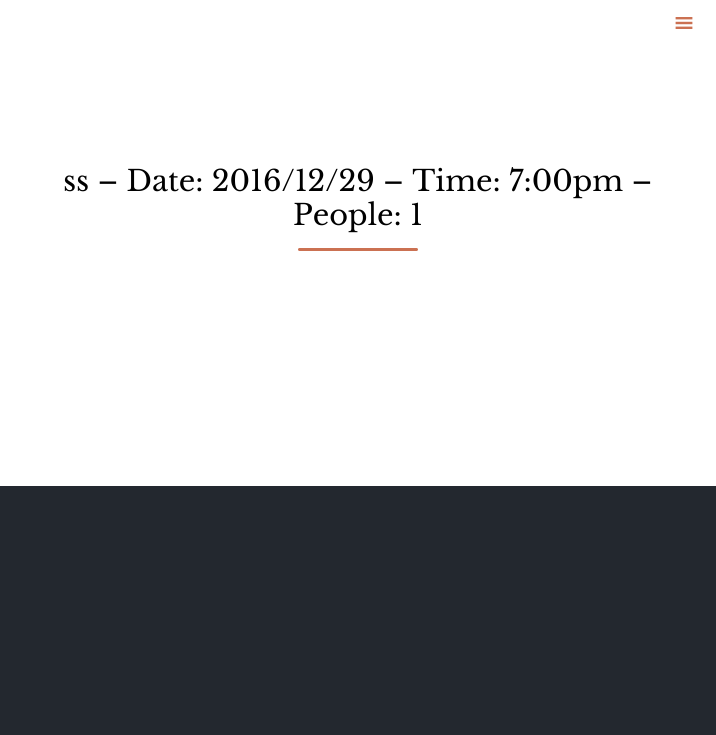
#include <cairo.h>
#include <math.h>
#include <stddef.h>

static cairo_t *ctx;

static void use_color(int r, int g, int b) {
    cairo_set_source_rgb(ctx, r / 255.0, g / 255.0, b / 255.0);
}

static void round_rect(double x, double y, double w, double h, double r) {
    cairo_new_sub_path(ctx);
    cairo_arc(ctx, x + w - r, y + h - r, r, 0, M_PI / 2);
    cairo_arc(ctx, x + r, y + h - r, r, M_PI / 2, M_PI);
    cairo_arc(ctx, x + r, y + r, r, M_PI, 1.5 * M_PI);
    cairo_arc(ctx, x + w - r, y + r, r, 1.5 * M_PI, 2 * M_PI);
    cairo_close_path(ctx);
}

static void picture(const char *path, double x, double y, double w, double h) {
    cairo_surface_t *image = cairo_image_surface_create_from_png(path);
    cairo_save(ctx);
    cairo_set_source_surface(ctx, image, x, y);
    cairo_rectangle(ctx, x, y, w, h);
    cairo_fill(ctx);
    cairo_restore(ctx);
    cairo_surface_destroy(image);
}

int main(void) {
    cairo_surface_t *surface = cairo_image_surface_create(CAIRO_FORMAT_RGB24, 716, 735);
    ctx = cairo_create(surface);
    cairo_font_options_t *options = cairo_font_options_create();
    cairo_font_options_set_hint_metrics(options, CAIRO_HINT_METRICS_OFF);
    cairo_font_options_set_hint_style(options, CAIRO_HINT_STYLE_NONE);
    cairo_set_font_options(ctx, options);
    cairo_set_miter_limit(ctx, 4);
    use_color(255, 255, 255);
    cairo_paint(ctx);
    picture("img1.png", 675, 17, 18, 12);
    cairo_select_font_face(ctx, "Libre Baskerville", CAIRO_FONT_SLANT_NORMAL, CAIRO_FONT_WEIGHT_NORMAL);
    cairo_set_font_size(ctx, 28.8);
    use_color(0, 0, 0);
    cairo_move_to(ctx, 63, 191);
    cairo_show_text(ctx, "ss – Date: 2016/12/29 – Time: 7:00pm –");
    cairo_move_to(ctx, 293, 225);
    cairo_show_text(ctx, "People: 1");
    use_color(203, 113, 82);
    round_rect(298, 248, 120, 3, 1.5);
    cairo_fill(ctx);
    use_color(35, 40, 47);
    cairo_rectangle(ctx, 0, 486, 716, 249);
    cairo_fill(ctx);
    cairo_surface_write_to_png(surface, "result.png");
    cairo_font_options_destroy(options);
    cairo_destroy(ctx);
    cairo_surface_destroy(surface);
    return 0;
}
